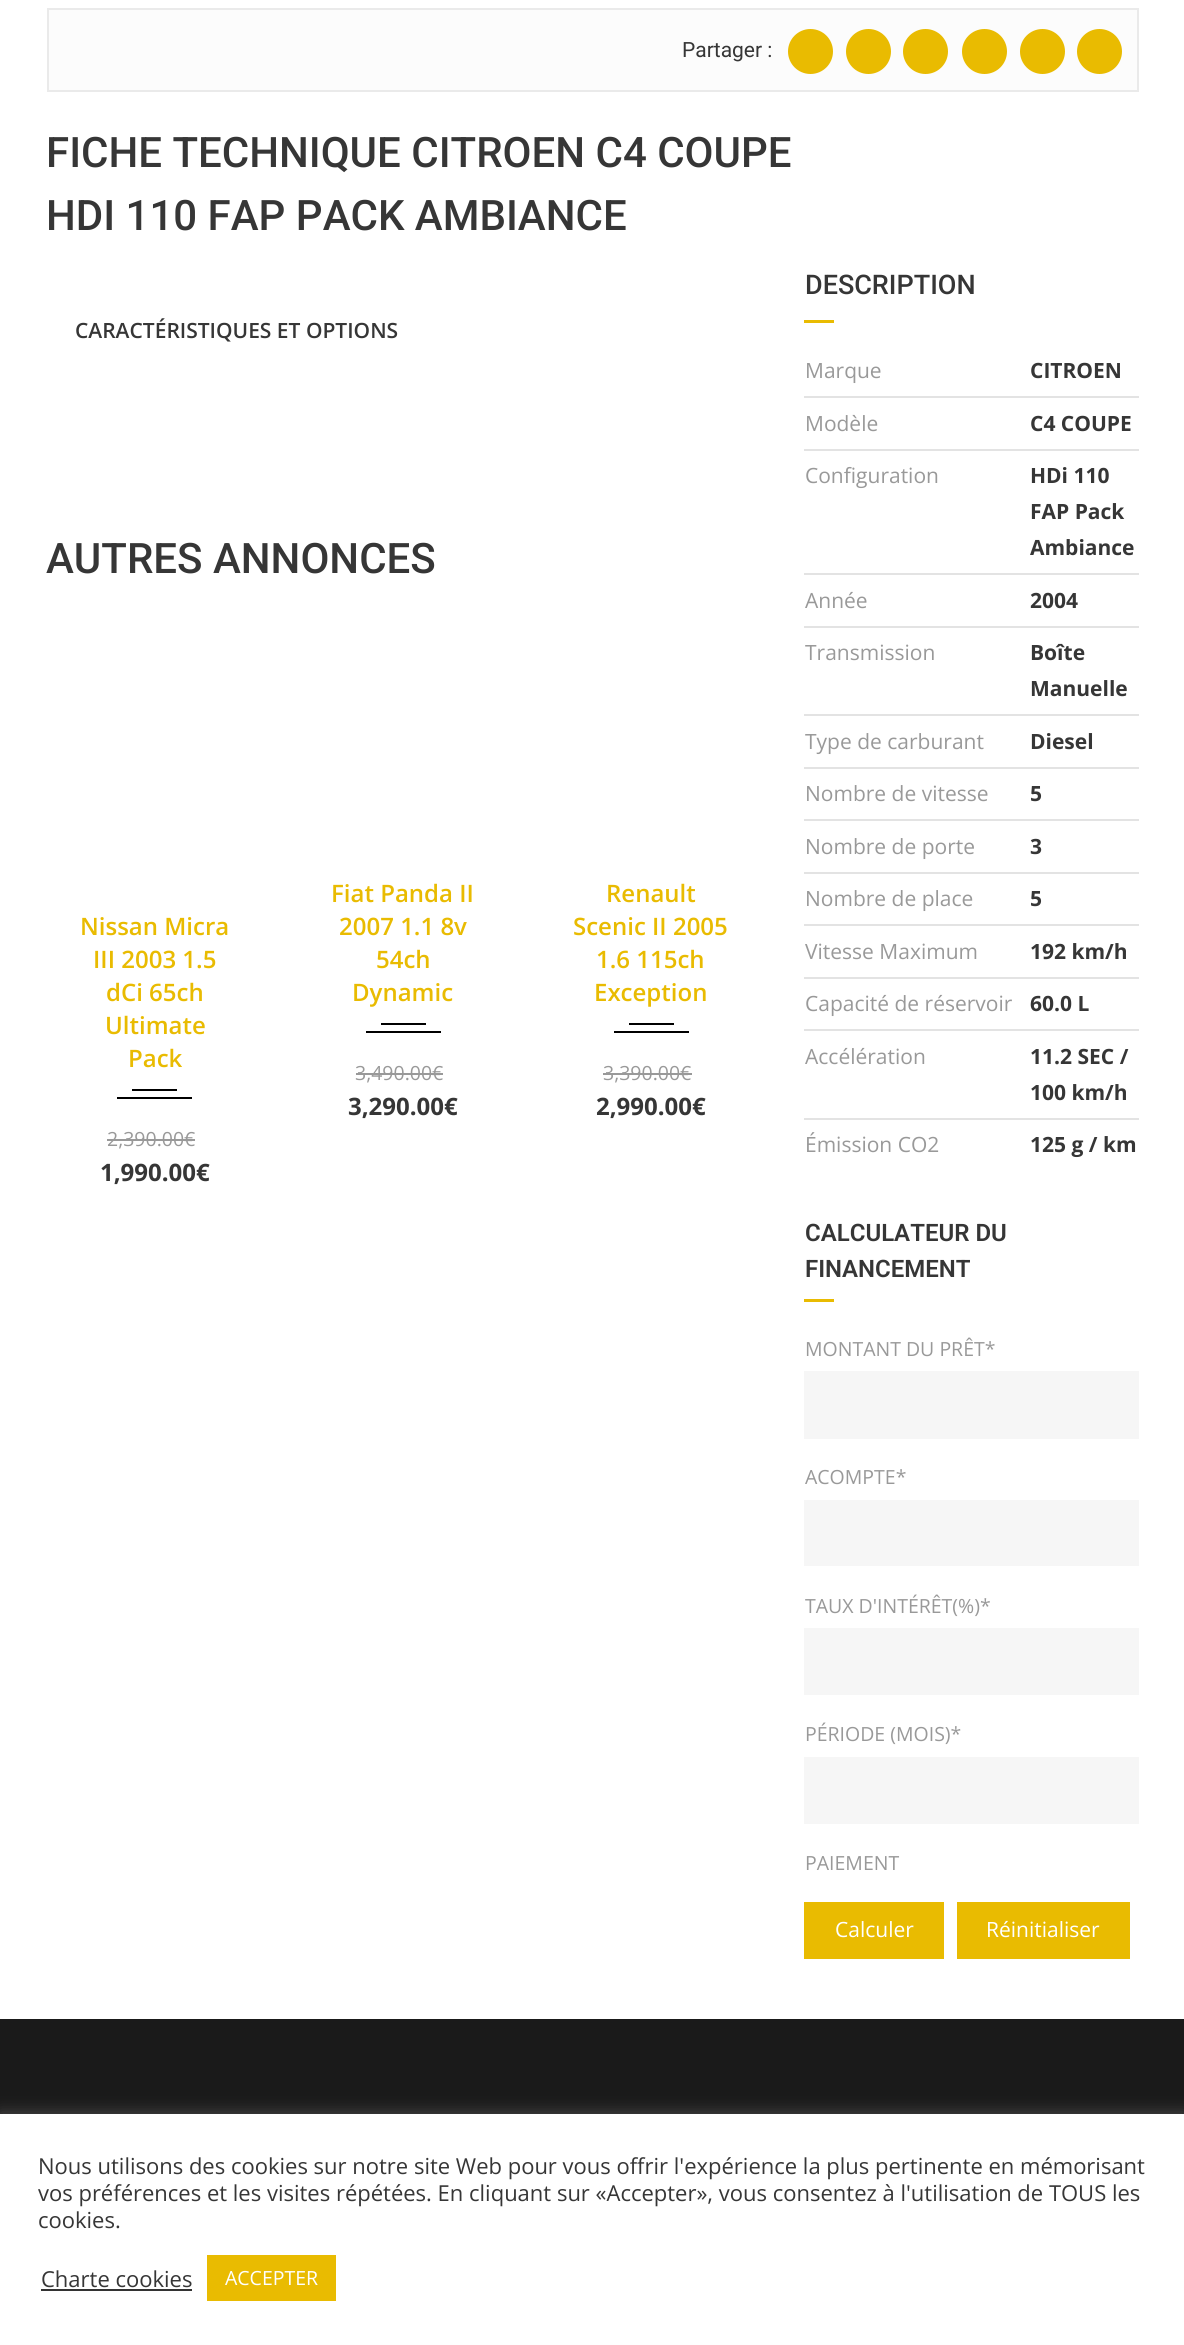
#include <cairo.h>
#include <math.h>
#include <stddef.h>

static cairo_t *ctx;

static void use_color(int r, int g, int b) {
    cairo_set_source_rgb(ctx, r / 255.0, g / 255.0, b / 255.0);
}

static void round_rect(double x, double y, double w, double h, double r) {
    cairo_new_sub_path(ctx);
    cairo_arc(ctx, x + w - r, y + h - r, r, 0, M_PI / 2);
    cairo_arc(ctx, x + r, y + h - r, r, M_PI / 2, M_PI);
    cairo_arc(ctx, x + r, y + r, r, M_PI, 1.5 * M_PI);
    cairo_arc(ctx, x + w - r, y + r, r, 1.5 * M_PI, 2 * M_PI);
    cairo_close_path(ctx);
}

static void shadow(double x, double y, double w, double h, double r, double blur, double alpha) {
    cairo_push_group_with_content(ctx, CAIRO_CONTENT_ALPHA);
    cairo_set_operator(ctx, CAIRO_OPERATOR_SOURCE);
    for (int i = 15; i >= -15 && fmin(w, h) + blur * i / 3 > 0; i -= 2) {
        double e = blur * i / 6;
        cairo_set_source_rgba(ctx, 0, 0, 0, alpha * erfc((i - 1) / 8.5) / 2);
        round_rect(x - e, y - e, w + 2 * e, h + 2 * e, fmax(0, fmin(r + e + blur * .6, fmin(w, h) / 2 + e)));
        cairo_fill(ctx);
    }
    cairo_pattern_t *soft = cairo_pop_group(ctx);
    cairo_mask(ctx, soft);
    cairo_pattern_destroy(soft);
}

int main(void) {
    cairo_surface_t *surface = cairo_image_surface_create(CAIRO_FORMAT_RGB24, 1184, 2345);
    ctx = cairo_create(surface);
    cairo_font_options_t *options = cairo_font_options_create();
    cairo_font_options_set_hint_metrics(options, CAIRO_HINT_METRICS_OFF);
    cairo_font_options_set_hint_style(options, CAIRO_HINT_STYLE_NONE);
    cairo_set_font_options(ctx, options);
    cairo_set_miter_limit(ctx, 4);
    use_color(255, 255, 255);
    cairo_paint(ctx);
    use_color(252, 252, 252);
    cairo_rectangle(ctx, 48, 9, 1090, 82);
    cairo_fill_preserve(ctx);
    use_color(234, 234, 234);
    cairo_stroke(ctx);
    cairo_select_font_face(ctx, "Roboto", CAIRO_FONT_SLANT_NORMAL, CAIRO_FONT_WEIGHT_NORMAL);
    cairo_set_font_size(ctx, 21);
    use_color(54, 54, 54);
    cairo_move_to(ctx, 682, 57);
    cairo_show_text(ctx, "Partager :");
    use_color(233, 187, 1);
    cairo_new_path(ctx);
    cairo_arc(ctx, 810.5, 51.5, 22.5, 0, 2 * M_PI);
    cairo_fill(ctx);
    cairo_arc(ctx, 868.5, 51.5, 22.5, 0, 2 * M_PI);
    cairo_fill(ctx);
    cairo_arc(ctx, 925.5, 51.5, 22.5, 0, 2 * M_PI);
    cairo_fill(ctx);
    cairo_arc(ctx, 984.5, 51.5, 22.5, 0, 2 * M_PI);
    cairo_fill(ctx);
    cairo_arc(ctx, 1042.5, 51.5, 22.5, 0, 2 * M_PI);
    cairo_fill(ctx);
    cairo_arc(ctx, 1099.5, 51.5, 22.5, 0, 2 * M_PI);
    cairo_fill(ctx);
    cairo_select_font_face(ctx, "Roboto Medium", CAIRO_FONT_SLANT_NORMAL, CAIRO_FONT_WEIGHT_NORMAL);
    cairo_set_font_size(ctx, 42);
    use_color(54, 54, 54);
    cairo_move_to(ctx, 46, 167);
    cairo_show_text(ctx, "FICHE TECHNIQUE CITROEN C4 COUPE");
    cairo_move_to(ctx, 46, 230);
    cairo_show_text(ctx, "HDI 110 FAP PACK AMBIANCE");
    cairo_select_font_face(ctx, "Open Sans SemiBold", CAIRO_FONT_SLANT_NORMAL, CAIRO_FONT_WEIGHT_NORMAL);
    cairo_set_font_size(ctx, 21);
    cairo_move_to(ctx, 75, 338);
    cairo_show_text(ctx, "CARACTÉRISTIQUES ET OPTIONS");
    cairo_select_font_face(ctx, "Roboto Medium", CAIRO_FONT_SLANT_NORMAL, CAIRO_FONT_WEIGHT_NORMAL);
    cairo_set_font_size(ctx, 42);
    cairo_move_to(ctx, 46, 573);
    cairo_show_text(ctx, "AUTRES ANNONCES");
    cairo_select_font_face(ctx, "Open Sans SemiBold", CAIRO_FONT_SLANT_NORMAL, CAIRO_FONT_WEIGHT_NORMAL);
    cairo_set_font_size(ctx, 24);
    use_color(233, 187, 1);
    cairo_move_to(ctx, 80, 935);
    cairo_show_text(ctx, "Nissan Micra");
    cairo_move_to(ctx, 93, 968);
    cairo_show_text(ctx, "III 2003 1.5");
    cairo_move_to(ctx, 106, 1001);
    cairo_show_text(ctx, "dCi 65ch");
    cairo_move_to(ctx, 105, 1034);
    cairo_show_text(ctx, "Ultimate");
    cairo_move_to(ctx, 128, 1067);
    cairo_show_text(ctx, "Pack");
    use_color(0, 0, 0);
    cairo_rectangle(ctx, 132, 1089, 45, 2);
    cairo_fill(ctx);
    cairo_rectangle(ctx, 117, 1097, 75, 2);
    cairo_fill(ctx);
    cairo_select_font_face(ctx, "Open Sans", CAIRO_FONT_SLANT_NORMAL, CAIRO_FONT_WEIGHT_NORMAL);
    cairo_set_font_size(ctx, 19.5);
    use_color(153, 153, 153);
    cairo_move_to(ctx, 107, 1146);
    cairo_show_text(ctx, "2,390.00€");
    cairo_rectangle(ctx, 107, 1139, 88, 2);
    cairo_fill(ctx);
    cairo_select_font_face(ctx, "Open Sans", CAIRO_FONT_SLANT_NORMAL, CAIRO_FONT_WEIGHT_BOLD);
    cairo_set_font_size(ctx, 24);
    use_color(54, 54, 54);
    cairo_move_to(ctx, 100, 1181);
    cairo_show_text(ctx, "1,990.00€");
    cairo_select_font_face(ctx, "Open Sans SemiBold", CAIRO_FONT_SLANT_NORMAL, CAIRO_FONT_WEIGHT_NORMAL);
    use_color(233, 187, 1);
    cairo_move_to(ctx, 331, 902);
    cairo_show_text(ctx, "Fiat Panda II");
    cairo_move_to(ctx, 339, 935);
    cairo_show_text(ctx, "2007 1.1 8v");
    cairo_move_to(ctx, 376, 968);
    cairo_show_text(ctx, "54ch");
    cairo_move_to(ctx, 352, 1001);
    cairo_show_text(ctx, "Dynamic");
    use_color(0, 0, 0);
    cairo_rectangle(ctx, 381, 1023, 45, 2);
    cairo_fill(ctx);
    cairo_rectangle(ctx, 366, 1031, 75, 2);
    cairo_fill(ctx);
    cairo_select_font_face(ctx, "Open Sans", CAIRO_FONT_SLANT_NORMAL, CAIRO_FONT_WEIGHT_NORMAL);
    cairo_set_font_size(ctx, 19.5);
    use_color(153, 153, 153);
    cairo_move_to(ctx, 355, 1080);
    cairo_show_text(ctx, "3,490.00€");
    cairo_rectangle(ctx, 356, 1073, 87, 2);
    cairo_fill(ctx);
    cairo_select_font_face(ctx, "Open Sans", CAIRO_FONT_SLANT_NORMAL, CAIRO_FONT_WEIGHT_BOLD);
    cairo_set_font_size(ctx, 24);
    use_color(54, 54, 54);
    cairo_move_to(ctx, 348, 1115);
    cairo_show_text(ctx, "3,290.00€");
    cairo_select_font_face(ctx, "Open Sans SemiBold", CAIRO_FONT_SLANT_NORMAL, CAIRO_FONT_WEIGHT_NORMAL);
    use_color(233, 187, 1);
    cairo_move_to(ctx, 606, 902);
    cairo_show_text(ctx, "Renault");
    cairo_move_to(ctx, 573, 935);
    cairo_show_text(ctx, "Scenic II 2005");
    cairo_move_to(ctx, 596, 968);
    cairo_show_text(ctx, "1.6 115ch");
    cairo_move_to(ctx, 594, 1001);
    cairo_show_text(ctx, "Exception");
    use_color(0, 0, 0);
    cairo_rectangle(ctx, 629, 1023, 45, 2);
    cairo_fill(ctx);
    cairo_rectangle(ctx, 614, 1031, 75, 2);
    cairo_fill(ctx);
    cairo_select_font_face(ctx, "Open Sans", CAIRO_FONT_SLANT_NORMAL, CAIRO_FONT_WEIGHT_NORMAL);
    cairo_set_font_size(ctx, 19.5);
    use_color(153, 153, 153);
    cairo_move_to(ctx, 603, 1080);
    cairo_show_text(ctx, "3,390.00€");
    cairo_rectangle(ctx, 603, 1073, 89, 2);
    cairo_fill(ctx);
    cairo_select_font_face(ctx, "Open Sans", CAIRO_FONT_SLANT_NORMAL, CAIRO_FONT_WEIGHT_BOLD);
    cairo_set_font_size(ctx, 24);
    use_color(54, 54, 54);
    cairo_move_to(ctx, 596, 1115);
    cairo_show_text(ctx, "2,990.00€");
    cairo_select_font_face(ctx, "Roboto Medium", CAIRO_FONT_SLANT_NORMAL, CAIRO_FONT_WEIGHT_NORMAL);
    cairo_set_font_size(ctx, 27);
    cairo_move_to(ctx, 805, 294);
    cairo_show_text(ctx, "DESCRIPTION");
    use_color(233, 187, 1);
    cairo_rectangle(ctx, 804, 320, 30, 3);
    cairo_fill(ctx);
    use_color(227, 227, 227);
    cairo_rectangle(ctx, 804, 396, 335, 2);
    cairo_fill(ctx);
    cairo_select_font_face(ctx, "Open Sans", CAIRO_FONT_SLANT_NORMAL, CAIRO_FONT_WEIGHT_NORMAL);
    cairo_set_font_size(ctx, 21);
    use_color(153, 153, 153);
    cairo_move_to(ctx, 805, 378);
    cairo_show_text(ctx, "Marque");
    cairo_select_font_face(ctx, "Open Sans", CAIRO_FONT_SLANT_NORMAL, CAIRO_FONT_WEIGHT_BOLD);
    use_color(54, 54, 54);
    cairo_move_to(ctx, 1030, 378);
    cairo_show_text(ctx, "CITROEN");
    use_color(227, 227, 227);
    cairo_rectangle(ctx, 804, 449, 335, 2);
    cairo_fill(ctx);
    cairo_select_font_face(ctx, "Open Sans", CAIRO_FONT_SLANT_NORMAL, CAIRO_FONT_WEIGHT_NORMAL);
    use_color(153, 153, 153);
    cairo_move_to(ctx, 805, 431);
    cairo_show_text(ctx, "Modèle");
    cairo_select_font_face(ctx, "Open Sans", CAIRO_FONT_SLANT_NORMAL, CAIRO_FONT_WEIGHT_BOLD);
    use_color(54, 54, 54);
    cairo_move_to(ctx, 1030, 431);
    cairo_show_text(ctx, "C4 COUPE");
    use_color(227, 227, 227);
    cairo_rectangle(ctx, 804, 573, 335, 2);
    cairo_fill(ctx);
    cairo_select_font_face(ctx, "Open Sans", CAIRO_FONT_SLANT_NORMAL, CAIRO_FONT_WEIGHT_NORMAL);
    use_color(153, 153, 153);
    cairo_move_to(ctx, 805, 483);
    cairo_show_text(ctx, "Configuration");
    cairo_select_font_face(ctx, "Open Sans", CAIRO_FONT_SLANT_NORMAL, CAIRO_FONT_WEIGHT_BOLD);
    use_color(54, 54, 54);
    cairo_move_to(ctx, 1030, 483);
    cairo_show_text(ctx, "HDi 110");
    cairo_move_to(ctx, 1030, 519);
    cairo_show_text(ctx, "FAP Pack");
    cairo_move_to(ctx, 1030, 555);
    cairo_show_text(ctx, "Ambiance");
    use_color(227, 227, 227);
    cairo_rectangle(ctx, 804, 626, 335, 2);
    cairo_fill(ctx);
    cairo_select_font_face(ctx, "Open Sans", CAIRO_FONT_SLANT_NORMAL, CAIRO_FONT_WEIGHT_NORMAL);
    use_color(153, 153, 153);
    cairo_move_to(ctx, 805, 608);
    cairo_show_text(ctx, "Année");
    cairo_select_font_face(ctx, "Open Sans", CAIRO_FONT_SLANT_NORMAL, CAIRO_FONT_WEIGHT_BOLD);
    use_color(54, 54, 54);
    cairo_move_to(ctx, 1030, 608);
    cairo_show_text(ctx, "2004");
    use_color(227, 227, 227);
    cairo_rectangle(ctx, 804, 714, 335, 2);
    cairo_fill(ctx);
    cairo_select_font_face(ctx, "Open Sans", CAIRO_FONT_SLANT_NORMAL, CAIRO_FONT_WEIGHT_NORMAL);
    use_color(153, 153, 153);
    cairo_move_to(ctx, 805, 660);
    cairo_show_text(ctx, "Transmission");
    cairo_select_font_face(ctx, "Open Sans", CAIRO_FONT_SLANT_NORMAL, CAIRO_FONT_WEIGHT_BOLD);
    use_color(54, 54, 54);
    cairo_move_to(ctx, 1030, 660);
    cairo_show_text(ctx, "Boîte");
    cairo_move_to(ctx, 1030, 696);
    cairo_show_text(ctx, "Manuelle");
    use_color(227, 227, 227);
    cairo_rectangle(ctx, 804, 767, 335, 2);
    cairo_fill(ctx);
    cairo_select_font_face(ctx, "Open Sans", CAIRO_FONT_SLANT_NORMAL, CAIRO_FONT_WEIGHT_NORMAL);
    use_color(153, 153, 153);
    cairo_move_to(ctx, 805, 749);
    cairo_show_text(ctx, "Type de carburant");
    cairo_select_font_face(ctx, "Open Sans", CAIRO_FONT_SLANT_NORMAL, CAIRO_FONT_WEIGHT_BOLD);
    use_color(54, 54, 54);
    cairo_move_to(ctx, 1030, 749);
    cairo_show_text(ctx, "Diesel");
    use_color(227, 227, 227);
    cairo_rectangle(ctx, 804, 819, 335, 2);
    cairo_fill(ctx);
    cairo_select_font_face(ctx, "Open Sans", CAIRO_FONT_SLANT_NORMAL, CAIRO_FONT_WEIGHT_NORMAL);
    use_color(153, 153, 153);
    cairo_move_to(ctx, 805, 801);
    cairo_show_text(ctx, "Nombre de vitesse");
    cairo_select_font_face(ctx, "Open Sans", CAIRO_FONT_SLANT_NORMAL, CAIRO_FONT_WEIGHT_BOLD);
    use_color(54, 54, 54);
    cairo_move_to(ctx, 1030, 801);
    cairo_show_text(ctx, "5");
    use_color(227, 227, 227);
    cairo_rectangle(ctx, 804, 872, 335, 2);
    cairo_fill(ctx);
    cairo_select_font_face(ctx, "Open Sans", CAIRO_FONT_SLANT_NORMAL, CAIRO_FONT_WEIGHT_NORMAL);
    use_color(153, 153, 153);
    cairo_move_to(ctx, 805, 854);
    cairo_show_text(ctx, "Nombre de porte");
    cairo_select_font_face(ctx, "Open Sans", CAIRO_FONT_SLANT_NORMAL, CAIRO_FONT_WEIGHT_BOLD);
    use_color(54, 54, 54);
    cairo_move_to(ctx, 1030, 854);
    cairo_show_text(ctx, "3");
    use_color(227, 227, 227);
    cairo_rectangle(ctx, 804, 924, 335, 2);
    cairo_fill(ctx);
    cairo_select_font_face(ctx, "Open Sans", CAIRO_FONT_SLANT_NORMAL, CAIRO_FONT_WEIGHT_NORMAL);
    use_color(153, 153, 153);
    cairo_move_to(ctx, 805, 906);
    cairo_show_text(ctx, "Nombre de place");
    cairo_select_font_face(ctx, "Open Sans", CAIRO_FONT_SLANT_NORMAL, CAIRO_FONT_WEIGHT_BOLD);
    use_color(54, 54, 54);
    cairo_move_to(ctx, 1030, 906);
    cairo_show_text(ctx, "5");
    use_color(227, 227, 227);
    cairo_rectangle(ctx, 804, 977, 335, 2);
    cairo_fill(ctx);
    cairo_select_font_face(ctx, "Open Sans", CAIRO_FONT_SLANT_NORMAL, CAIRO_FONT_WEIGHT_NORMAL);
    use_color(153, 153, 153);
    cairo_move_to(ctx, 805, 959);
    cairo_show_text(ctx, "Vitesse Maximum");
    cairo_select_font_face(ctx, "Open Sans", CAIRO_FONT_SLANT_NORMAL, CAIRO_FONT_WEIGHT_BOLD);
    use_color(54, 54, 54);
    cairo_move_to(ctx, 1030, 959);
    cairo_show_text(ctx, "192 km/h");
    use_color(227, 227, 227);
    cairo_rectangle(ctx, 804, 1029, 335, 2);
    cairo_fill(ctx);
    cairo_select_font_face(ctx, "Open Sans", CAIRO_FONT_SLANT_NORMAL, CAIRO_FONT_WEIGHT_NORMAL);
    use_color(153, 153, 153);
    cairo_move_to(ctx, 805, 1011);
    cairo_show_text(ctx, "Capacité de réservoir");
    cairo_select_font_face(ctx, "Open Sans", CAIRO_FONT_SLANT_NORMAL, CAIRO_FONT_WEIGHT_BOLD);
    use_color(54, 54, 54);
    cairo_move_to(ctx, 1030, 1011);
    cairo_show_text(ctx, "60.0 L");
    use_color(227, 227, 227);
    cairo_rectangle(ctx, 804, 1118, 335, 2);
    cairo_fill(ctx);
    cairo_select_font_face(ctx, "Open Sans", CAIRO_FONT_SLANT_NORMAL, CAIRO_FONT_WEIGHT_NORMAL);
    use_color(153, 153, 153);
    cairo_move_to(ctx, 805, 1064);
    cairo_show_text(ctx, "Accélération");
    cairo_select_font_face(ctx, "Open Sans", CAIRO_FONT_SLANT_NORMAL, CAIRO_FONT_WEIGHT_BOLD);
    use_color(54, 54, 54);
    cairo_move_to(ctx, 1030, 1064);
    cairo_show_text(ctx, "11.2 SEC /");
    cairo_move_to(ctx, 1030, 1100);
    cairo_show_text(ctx, "100 km/h");
    cairo_select_font_face(ctx, "Open Sans", CAIRO_FONT_SLANT_NORMAL, CAIRO_FONT_WEIGHT_NORMAL);
    use_color(153, 153, 153);
    cairo_move_to(ctx, 805, 1152);
    cairo_show_text(ctx, "Émission CO2");
    cairo_select_font_face(ctx, "Open Sans", CAIRO_FONT_SLANT_NORMAL, CAIRO_FONT_WEIGHT_BOLD);
    use_color(54, 54, 54);
    cairo_move_to(ctx, 1030, 1152);
    cairo_show_text(ctx, "125 g / km");
    cairo_select_font_face(ctx, "Roboto SemiBold", CAIRO_FONT_SLANT_NORMAL, CAIRO_FONT_WEIGHT_NORMAL);
    cairo_set_font_size(ctx, 24);
    cairo_move_to(ctx, 805, 1241);
    cairo_show_text(ctx, "CALCULATEUR DU");
    cairo_move_to(ctx, 805, 1277);
    cairo_show_text(ctx, "FINANCEMENT");
    use_color(233, 187, 1);
    cairo_rectangle(ctx, 804, 1299, 30, 3);
    cairo_fill(ctx);
    cairo_select_font_face(ctx, "Open Sans", CAIRO_FONT_SLANT_NORMAL, CAIRO_FONT_WEIGHT_NORMAL);
    cairo_set_font_size(ctx, 19.5);
    use_color(153, 153, 153);
    cairo_move_to(ctx, 805, 1356);
    cairo_show_text(ctx, "MONTANT DU PRÊT*");
    use_color(246, 246, 246);
    cairo_rectangle(ctx, 804, 1371, 335, 68);
    cairo_fill(ctx);
    use_color(153, 153, 153);
    cairo_move_to(ctx, 805, 1484);
    cairo_show_text(ctx, "ACOMPTE*");
    use_color(246, 246, 246);
    cairo_rectangle(ctx, 804, 1500, 335, 66);
    cairo_fill(ctx);
    use_color(153, 153, 153);
    cairo_move_to(ctx, 805, 1613);
    cairo_show_text(ctx, "TAUX D'INTÉRÊT(%)*");
    use_color(246, 246, 246);
    cairo_rectangle(ctx, 804, 1628, 335, 67);
    cairo_fill(ctx);
    use_color(153, 153, 153);
    cairo_move_to(ctx, 805, 1741);
    cairo_show_text(ctx, "PÉRIODE (MOIS)*");
    use_color(246, 246, 246);
    cairo_rectangle(ctx, 804, 1757, 335, 67);
    cairo_fill(ctx);
    use_color(153, 153, 153);
    cairo_move_to(ctx, 805, 1870);
    cairo_show_text(ctx, "PAIEMENT");
    use_color(233, 187, 1);
    cairo_rectangle(ctx, 804, 1902, 140, 57);
    cairo_fill(ctx);
    cairo_set_font_size(ctx, 21);
    use_color(255, 255, 255);
    cairo_move_to(ctx, 835, 1937);
    cairo_show_text(ctx, "Calculer");
    use_color(233, 187, 1);
    cairo_rectangle(ctx, 957, 1902, 173, 57);
    cairo_fill(ctx);
    use_color(255, 255, 255);
    cairo_move_to(ctx, 986, 1937);
    cairo_show_text(ctx, "Réinitialiser");
    use_color(26, 26, 26);
    cairo_rectangle(ctx, 0, 2019, 1184, 95);
    cairo_fill(ctx);
    use_color(172, 171, 171);
    shadow(0, 2112, 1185, 233, 0, 7.5, 0.3);
    use_color(255, 255, 255);
    cairo_rectangle(ctx, 0, 2114, 1184, 231);
    cairo_fill(ctx);
    cairo_set_font_size(ctx, 22);
    use_color(54, 54, 54);
    cairo_move_to(ctx, 38, 2174);
    cairo_show_text(ctx, "Nous utilisons des cookies sur notre site Web pour vous offrir l'expérience la plus pertinente en mémorisant");
    cairo_move_to(ctx, 38, 2201);
    cairo_show_text(ctx, "vos préférences et les visites répétées. En cliquant sur «Accepter», vous consentez à l'utilisation de TOUS les");
    cairo_move_to(ctx, 38, 2228);
    cairo_show_text(ctx, "cookies.");
    cairo_move_to(ctx, 41, 2287);
    cairo_show_text(ctx, "Charte cookies");
    use_color(51, 51, 51);
    cairo_rectangle(ctx, 41, 2289, 151, 2);
    cairo_fill(ctx);
    use_color(233, 187, 1);
    cairo_rectangle(ctx, 207, 2255, 129, 46);
    cairo_fill(ctx);
    cairo_set_font_size(ctx, 19.5);
    use_color(255, 255, 255);
    cairo_move_to(ctx, 225, 2285);
    cairo_show_text(ctx, "ACCEPTER");
    cairo_surface_write_to_png(surface, "result.png");
    cairo_font_options_destroy(options);
    cairo_destroy(ctx);
    cairo_surface_destroy(surface);
    return 0;
}
